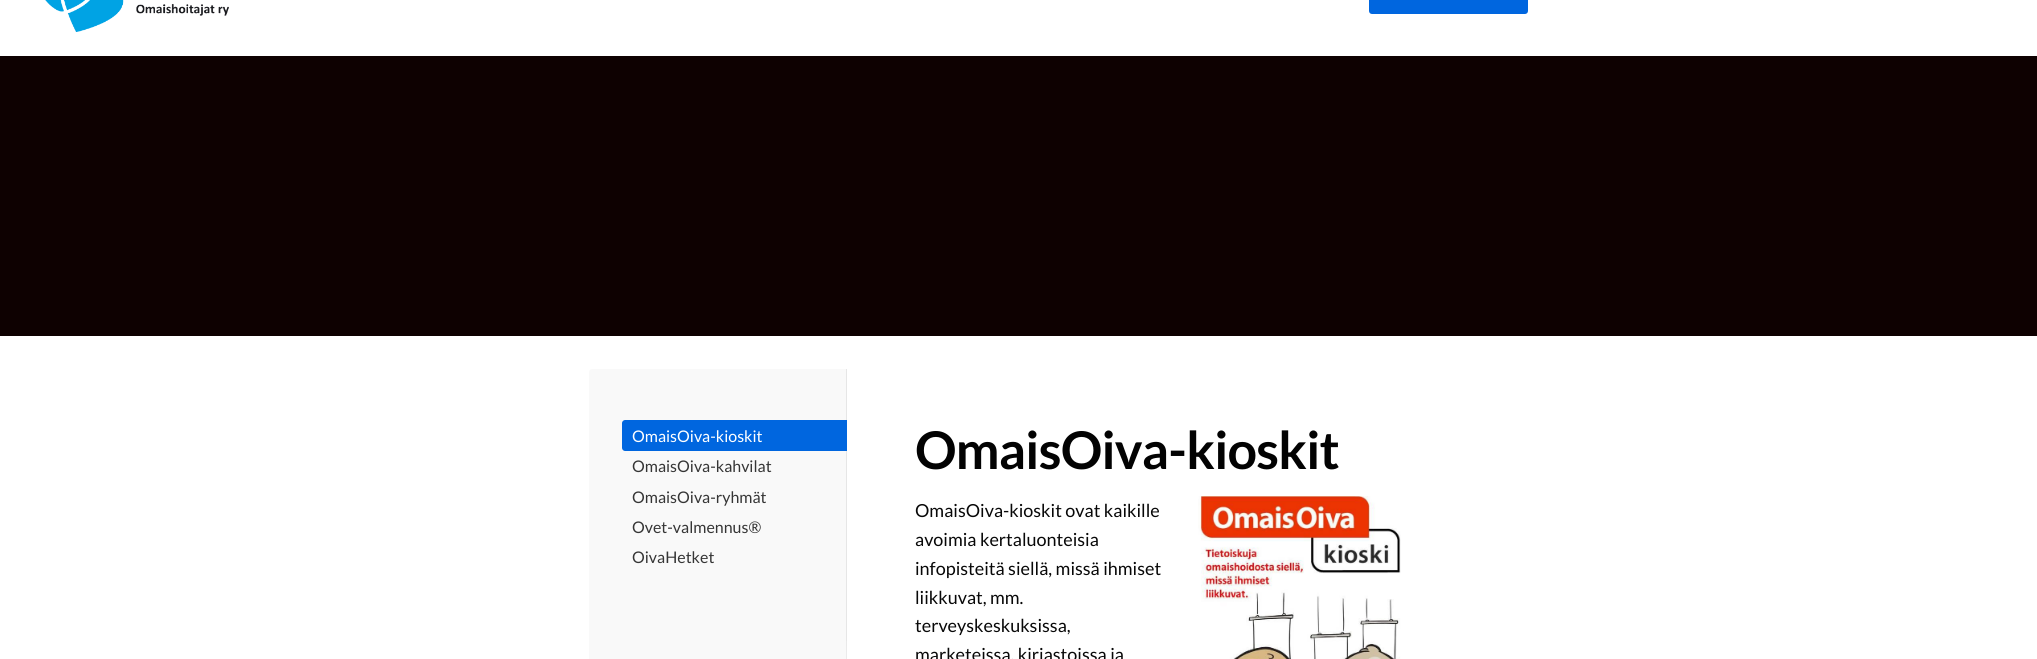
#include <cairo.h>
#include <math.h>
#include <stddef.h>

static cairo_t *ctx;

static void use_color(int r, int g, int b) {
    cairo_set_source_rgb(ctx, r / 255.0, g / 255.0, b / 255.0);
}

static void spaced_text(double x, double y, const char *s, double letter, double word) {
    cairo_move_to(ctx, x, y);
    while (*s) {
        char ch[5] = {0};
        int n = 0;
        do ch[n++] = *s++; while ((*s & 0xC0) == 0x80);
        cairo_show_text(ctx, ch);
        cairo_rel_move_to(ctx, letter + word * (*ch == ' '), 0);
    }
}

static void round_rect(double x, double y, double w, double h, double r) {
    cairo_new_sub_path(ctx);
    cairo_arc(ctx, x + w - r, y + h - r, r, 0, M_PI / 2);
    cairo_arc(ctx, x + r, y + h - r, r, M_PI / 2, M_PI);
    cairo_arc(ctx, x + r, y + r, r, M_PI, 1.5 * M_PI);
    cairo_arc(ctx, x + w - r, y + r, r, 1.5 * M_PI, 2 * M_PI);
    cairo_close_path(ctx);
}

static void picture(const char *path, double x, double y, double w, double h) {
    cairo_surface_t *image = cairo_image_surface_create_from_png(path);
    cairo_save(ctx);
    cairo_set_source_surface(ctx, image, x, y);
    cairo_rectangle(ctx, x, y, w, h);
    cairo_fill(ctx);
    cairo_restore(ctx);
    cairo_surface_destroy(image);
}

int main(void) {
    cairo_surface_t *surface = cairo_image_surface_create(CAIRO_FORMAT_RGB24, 2037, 659);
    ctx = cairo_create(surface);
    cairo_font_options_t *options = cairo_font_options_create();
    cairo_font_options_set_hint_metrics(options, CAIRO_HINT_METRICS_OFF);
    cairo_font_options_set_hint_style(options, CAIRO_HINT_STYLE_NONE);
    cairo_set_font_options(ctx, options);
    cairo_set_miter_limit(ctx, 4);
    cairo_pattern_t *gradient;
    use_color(255, 255, 255);
    cairo_paint(ctx);
    picture("img1.png", 45, 0, 184, 32);
    use_color(0, 102, 223);
    round_rect(1369, -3, 159, 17, 3);
    cairo_fill(ctx);
    use_color(14, 1, 1);
    cairo_rectangle(ctx, 0, 56, 2037, 280);
    cairo_fill(ctx);
    use_color(249, 249, 249);
    cairo_new_path(ctx);
    cairo_move_to(ctx, 592, 369);
    cairo_line_to(ctx, 847, 369);
    cairo_line_to(ctx, 847, 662);
    cairo_line_to(ctx, 589, 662);
    cairo_line_to(ctx, 589, 372);
    cairo_curve_to(ctx, 589, 370.5, 590.5, 369, 592, 369);
    cairo_close_path(ctx);
    cairo_fill(ctx);
    use_color(230, 230, 230);
    cairo_rectangle(ctx, 846, 369, 1, 290);
    cairo_fill(ctx);
    use_color(0, 102, 223);
    cairo_new_path(ctx);
    cairo_move_to(ctx, 625, 420);
    cairo_line_to(ctx, 847, 420);
    cairo_line_to(ctx, 847, 451);
    cairo_line_to(ctx, 625, 451);
    cairo_curve_to(ctx, 623.5, 451, 622, 449.5, 622, 448);
    cairo_line_to(ctx, 622, 423);
    cairo_curve_to(ctx, 622, 421.5, 623.5, 420, 625, 420);
    cairo_close_path(ctx);
    cairo_fill(ctx);
    cairo_select_font_face(ctx, "Lato", CAIRO_FONT_SLANT_NORMAL, CAIRO_FONT_WEIGHT_NORMAL);
    cairo_set_font_size(ctx, 16);
    use_color(255, 255, 255);
    cairo_move_to(ctx, 632, 442);
    cairo_show_text(ctx, "OmaisOiva-kioskit");
    use_color(53, 53, 53);
    cairo_move_to(ctx, 632, 472);
    cairo_show_text(ctx, "OmaisOiva-kahvilat");
    cairo_move_to(ctx, 632, 503);
    cairo_show_text(ctx, "OmaisOiva-ryhmät");
    cairo_move_to(ctx, 632, 533);
    cairo_show_text(ctx, "Ovet-valmennus®");
    cairo_move_to(ctx, 632, 563);
    cairo_show_text(ctx, "OivaHetket");
    gradient = cairo_pattern_create_linear(718, 625, 718, 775);
    cairo_pattern_add_color_stop_rgba(gradient, 0, 1, 1, 1, 0);
    cairo_pattern_add_color_stop_rgba(gradient, 1, 1, 1, 1, 1);
    cairo_set_source(ctx, gradient);
    cairo_pattern_destroy(gradient);
    cairo_rectangle(ctx, 846, 641, 1, 18);
    cairo_fill(ctx);
    cairo_select_font_face(ctx, "Lato", CAIRO_FONT_SLANT_NORMAL, CAIRO_FONT_WEIGHT_BOLD);
    cairo_set_font_size(ctx, 52);
    use_color(2, 2, 2);
    spaced_text(915, 469, "OmaisOiva-kioskit", -0.75, 0);
    cairo_select_font_face(ctx, "Lato", CAIRO_FONT_SLANT_NORMAL, CAIRO_FONT_WEIGHT_NORMAL);
    cairo_set_font_size(ctx, 18);
    use_color(8, 8, 8);
    cairo_move_to(ctx, 915, 517);
    cairo_show_text(ctx, "OmaisOiva-kioskit ovat kaikille");
    cairo_move_to(ctx, 915, 546);
    cairo_show_text(ctx, "avoimia kertaluonteisia");
    cairo_move_to(ctx, 915, 575);
    cairo_show_text(ctx, "infopisteitä siellä, missä ihmiset");
    cairo_move_to(ctx, 915, 604);
    cairo_show_text(ctx, "liikkuvat, mm.");
    cairo_move_to(ctx, 915, 632);
    cairo_show_text(ctx, "terveyskeskuksissa,");
    cairo_move_to(ctx, 915, 661);
    cairo_show_text(ctx, "marketeissa, kirjastoissa ja");
    picture("img2.png", 1198, 496, 203, 163);
    cairo_surface_write_to_png(surface, "result.png");
    cairo_font_options_destroy(options);
    cairo_destroy(ctx);
    cairo_surface_destroy(surface);
    return 0;
}
